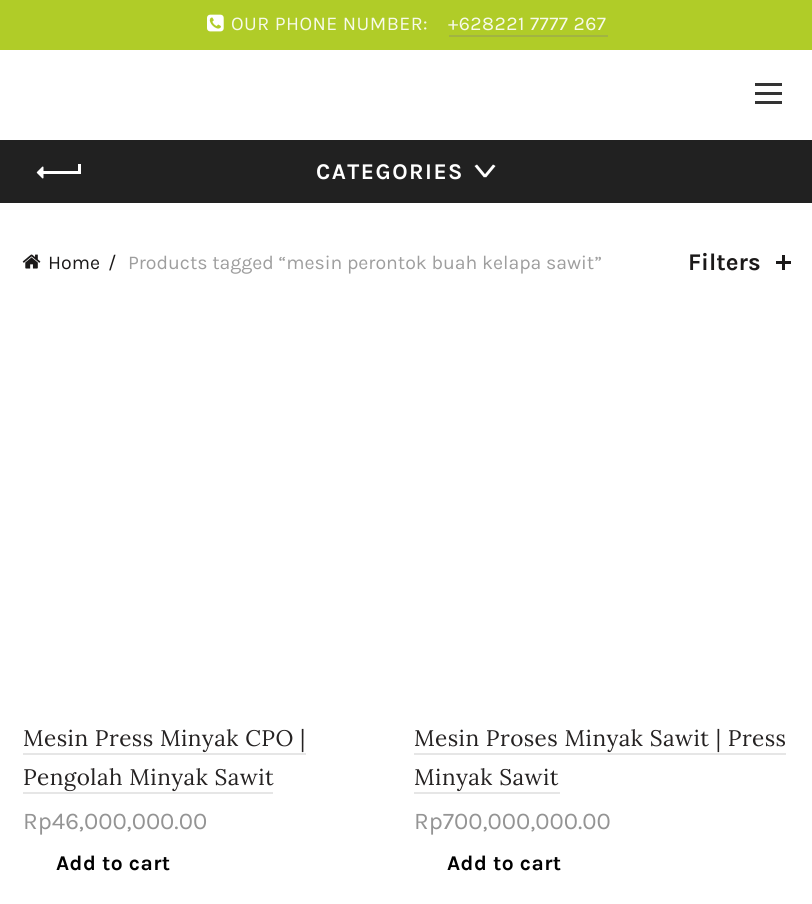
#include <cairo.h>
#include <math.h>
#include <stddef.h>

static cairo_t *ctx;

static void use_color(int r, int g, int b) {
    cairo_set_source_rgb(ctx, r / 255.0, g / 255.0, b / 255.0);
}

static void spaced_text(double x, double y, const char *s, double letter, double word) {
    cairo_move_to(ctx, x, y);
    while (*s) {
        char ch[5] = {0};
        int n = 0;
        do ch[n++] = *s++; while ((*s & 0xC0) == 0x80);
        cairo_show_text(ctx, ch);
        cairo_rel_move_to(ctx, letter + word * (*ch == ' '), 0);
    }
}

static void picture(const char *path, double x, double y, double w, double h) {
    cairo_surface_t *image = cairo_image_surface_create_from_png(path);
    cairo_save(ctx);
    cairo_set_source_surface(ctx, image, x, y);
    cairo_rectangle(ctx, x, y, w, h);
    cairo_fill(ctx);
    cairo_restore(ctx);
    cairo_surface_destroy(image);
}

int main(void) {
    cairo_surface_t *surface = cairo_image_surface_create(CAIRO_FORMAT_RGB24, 812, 904);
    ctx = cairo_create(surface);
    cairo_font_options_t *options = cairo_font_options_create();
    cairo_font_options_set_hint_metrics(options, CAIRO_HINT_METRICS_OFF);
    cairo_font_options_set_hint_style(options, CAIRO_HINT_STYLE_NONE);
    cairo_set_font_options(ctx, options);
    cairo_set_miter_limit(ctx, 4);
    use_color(255, 255, 255);
    cairo_paint(ctx);
    use_color(176, 204, 40);
    cairo_rectangle(ctx, 0, 0, 812, 50);
    cairo_fill(ctx);
    picture("img1.png", 207, 14, 17, 18);
    cairo_select_font_face(ctx, "Karla", CAIRO_FONT_SLANT_NORMAL, CAIRO_FONT_WEIGHT_NORMAL);
    cairo_set_font_size(ctx, 19.5);
    use_color(247, 250, 234);
    spaced_text(231, 30, "OUR PHONE NUMBER:", 0.45, 0);
    spaced_text(448, 30, "+628221 7777 267", 0.45, 0);
    use_color(161, 180, 66);
    cairo_rectangle(ctx, 449, 35, 159, 2);
    cairo_fill(ctx);
    use_color(51, 51, 51);
    cairo_rectangle(ctx, 755, 92, 27, 3);
    cairo_fill(ctx);
    cairo_rectangle(ctx, 755, 83, 27, 3);
    cairo_fill(ctx);
    cairo_rectangle(ctx, 755, 101, 27, 3);
    cairo_fill(ctx);
    use_color(33, 33, 33);
    cairo_rectangle(ctx, 0, 140, 812, 63);
    cairo_fill(ctx);
    use_color(255, 255, 255);
    cairo_rectangle(ctx, 42, 171, 38, 3);
    cairo_fill(ctx);
    picture("img2.png", 36, 166, 8, 13);
    cairo_rectangle(ctx, 78, 164, 3, 10);
    cairo_fill(ctx);
    cairo_select_font_face(ctx, "Karla", CAIRO_FONT_SLANT_NORMAL, CAIRO_FONT_WEIGHT_BOLD);
    cairo_set_font_size(ctx, 22.5);
    spaced_text(316, 179, "CATEGORIES", 1.5, 0);
    cairo_new_path(ctx);
    cairo_move_to(ctx, 483.5, 176);
    cairo_line_to(ctx, 493, 164.5);
    cairo_line_to(ctx, 495.5, 166);
    cairo_line_to(ctx, 486, 177.5);
    cairo_close_path(ctx);
    cairo_fill(ctx);
    cairo_new_path(ctx);
    cairo_move_to(ctx, 477, 164.5);
    cairo_line_to(ctx, 486.5, 176);
    cairo_line_to(ctx, 484, 177.5);
    cairo_line_to(ctx, 474.5, 166);
    cairo_close_path(ctx);
    cairo_fill(ctx);
    picture("img3.png", 22, 254, 19, 15);
    cairo_select_font_face(ctx, "Karla", CAIRO_FONT_SLANT_NORMAL, CAIRO_FONT_WEIGHT_NORMAL);
    cairo_set_font_size(ctx, 19.5);
    use_color(27, 25, 25);
    cairo_move_to(ctx, 48, 269);
    cairo_show_text(ctx, "Home");
    cairo_move_to(ctx, 108, 269);
    cairo_show_text(ctx, "/");
    use_color(158, 158, 158);
    cairo_move_to(ctx, 128, 269);
    cairo_show_text(ctx, "Products tagged “mesin perontok buah kelapa sawit”");
    cairo_select_font_face(ctx, "Karla", CAIRO_FONT_SLANT_NORMAL, CAIRO_FONT_WEIGHT_BOLD);
    cairo_set_font_size(ctx, 24);
    use_color(27, 25, 25);
    cairo_move_to(ctx, 688, 270);
    cairo_show_text(ctx, "Filters");
    cairo_rectangle(ctx, 782, 255, 3, 15);
    cairo_fill(ctx);
    cairo_rectangle(ctx, 776, 261, 15, 3);
    cairo_fill(ctx);
    cairo_select_font_face(ctx, "Lora", CAIRO_FONT_SLANT_NORMAL, CAIRO_FONT_WEIGHT_NORMAL);
    cairo_set_font_size(ctx, 22.5);
    use_color(37, 34, 34);
    spaced_text(23, 746, "Mesin Press Minyak CPO |", 0.45, 0);
    use_color(230, 230, 230);
    cairo_rectangle(ctx, 23, 753, 283, 2);
    cairo_fill(ctx);
    use_color(37, 34, 34);
    spaced_text(23, 785, "Pengolah Minyak Sawit", 0.45, 0);
    use_color(230, 230, 230);
    cairo_rectangle(ctx, 23, 792, 250, 2);
    cairo_fill(ctx);
    cairo_select_font_face(ctx, "Karla", CAIRO_FONT_SLANT_NORMAL, CAIRO_FONT_WEIGHT_NORMAL);
    cairo_set_font_size(ctx, 24);
    use_color(148, 148, 148);
    cairo_move_to(ctx, 23, 829);
    cairo_show_text(ctx, "Rp46,000,000.00");
    cairo_select_font_face(ctx, "Karla", CAIRO_FONT_SLANT_NORMAL, CAIRO_FONT_WEIGHT_BOLD);
    cairo_set_font_size(ctx, 21);
    use_color(0, 0, 0);
    spaced_text(56, 870, "Add to cart", 0.45, 0);
    cairo_select_font_face(ctx, "Lora", CAIRO_FONT_SLANT_NORMAL, CAIRO_FONT_WEIGHT_NORMAL);
    cairo_set_font_size(ctx, 22.5);
    use_color(37, 34, 34);
    spaced_text(414, 746, "Mesin Proses Minyak Sawit | Press", 0.45, 0);
    use_color(230, 230, 230);
    cairo_rectangle(ctx, 414, 753, 372, 2);
    cairo_fill(ctx);
    use_color(37, 34, 34);
    spaced_text(414, 785, "Minyak Sawit", 0.45, 0);
    use_color(230, 230, 230);
    cairo_rectangle(ctx, 414, 792, 146, 2);
    cairo_fill(ctx);
    cairo_select_font_face(ctx, "Karla", CAIRO_FONT_SLANT_NORMAL, CAIRO_FONT_WEIGHT_NORMAL);
    cairo_set_font_size(ctx, 24);
    use_color(148, 148, 148);
    cairo_move_to(ctx, 414, 829);
    cairo_show_text(ctx, "Rp700,000,000.00");
    cairo_select_font_face(ctx, "Karla", CAIRO_FONT_SLANT_NORMAL, CAIRO_FONT_WEIGHT_BOLD);
    cairo_set_font_size(ctx, 21);
    use_color(0, 0, 0);
    spaced_text(447, 870, "Add to cart", 0.45, 0);
    cairo_surface_write_to_png(surface, "result.png");
    cairo_font_options_destroy(options);
    cairo_destroy(ctx);
    cairo_surface_destroy(surface);
    return 0;
}
